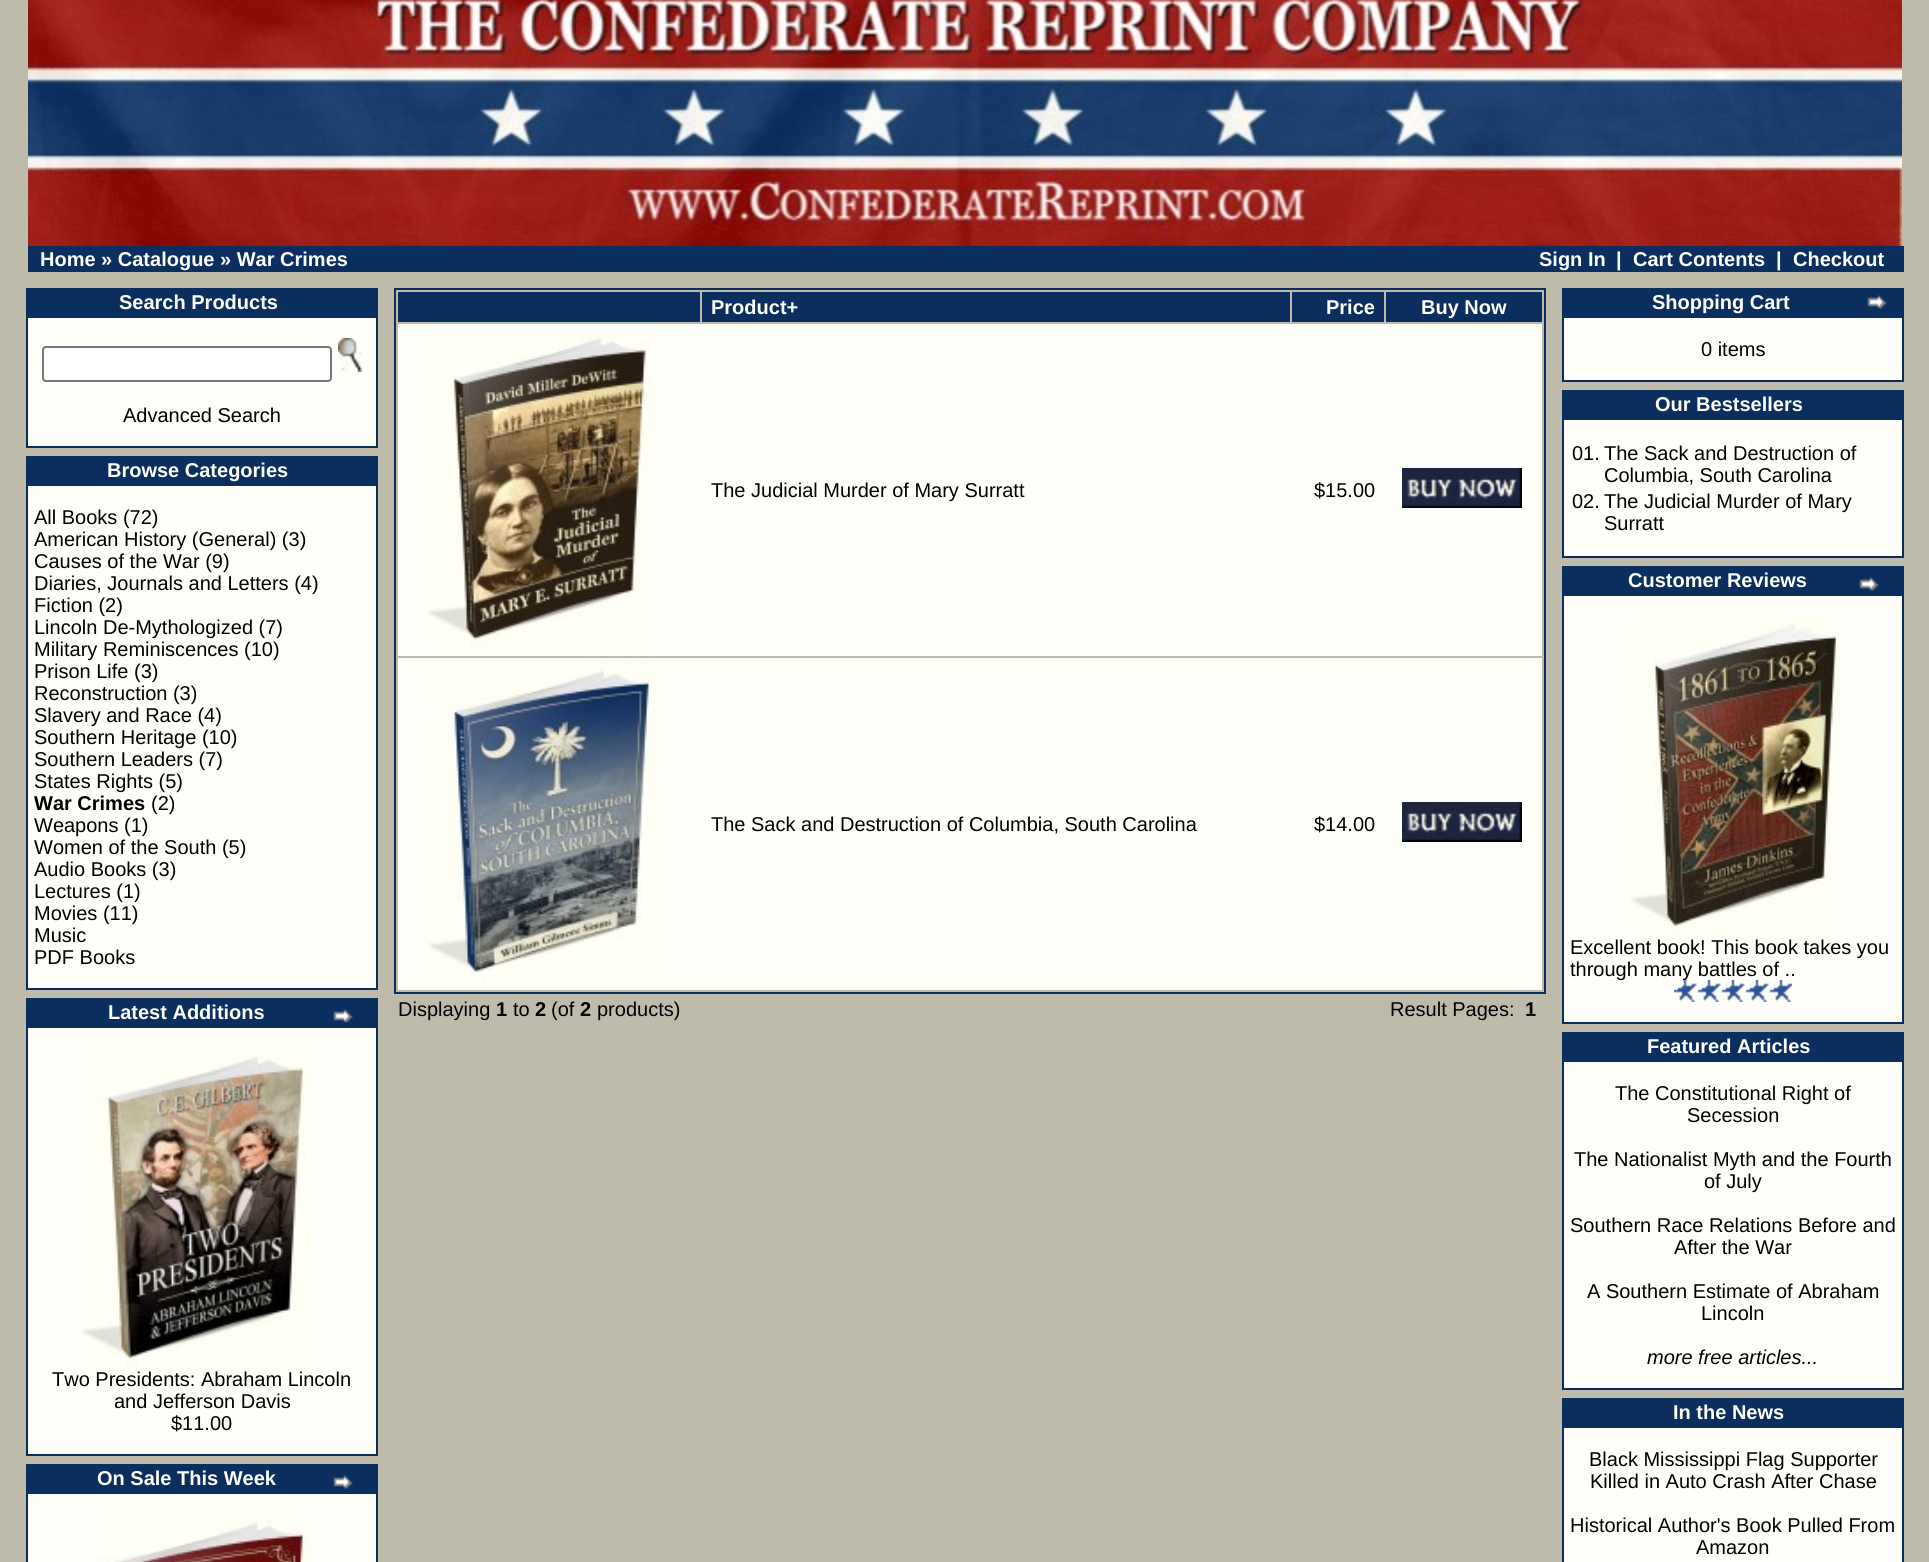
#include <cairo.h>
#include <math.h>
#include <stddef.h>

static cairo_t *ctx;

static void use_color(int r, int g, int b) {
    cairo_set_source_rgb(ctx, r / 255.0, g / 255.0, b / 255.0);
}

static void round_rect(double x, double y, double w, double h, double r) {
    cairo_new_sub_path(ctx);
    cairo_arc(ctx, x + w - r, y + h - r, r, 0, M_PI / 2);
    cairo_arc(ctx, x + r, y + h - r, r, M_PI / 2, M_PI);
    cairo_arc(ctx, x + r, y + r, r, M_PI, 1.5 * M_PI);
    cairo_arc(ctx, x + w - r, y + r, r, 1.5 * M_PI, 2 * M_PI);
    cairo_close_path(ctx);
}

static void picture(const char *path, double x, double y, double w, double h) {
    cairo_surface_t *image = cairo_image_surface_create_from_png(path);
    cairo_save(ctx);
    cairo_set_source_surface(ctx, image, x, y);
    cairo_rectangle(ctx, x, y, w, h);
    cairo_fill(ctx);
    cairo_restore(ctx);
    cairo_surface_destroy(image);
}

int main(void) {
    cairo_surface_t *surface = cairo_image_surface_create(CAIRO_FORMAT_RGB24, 1929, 1562);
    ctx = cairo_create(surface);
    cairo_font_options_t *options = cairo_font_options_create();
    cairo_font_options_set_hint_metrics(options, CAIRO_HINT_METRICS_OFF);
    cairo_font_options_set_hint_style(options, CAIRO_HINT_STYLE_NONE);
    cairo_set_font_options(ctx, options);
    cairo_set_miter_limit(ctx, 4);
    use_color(191, 187, 170);
    cairo_paint(ctx);
    picture("img1.png", 28, 0, 1874, 246);
    use_color(10, 47, 94);
    cairo_rectangle(ctx, 28, 246, 1876, 26);
    cairo_fill(ctx);
    cairo_select_font_face(ctx, "Liberation Sans", CAIRO_FONT_SLANT_NORMAL, CAIRO_FONT_WEIGHT_BOLD);
    cairo_set_font_size(ctx, 20);
    use_color(255, 255, 255);
    cairo_move_to(ctx, 40, 266);
    cairo_show_text(ctx, "Home » Catalogue » War Crimes");
    cairo_move_to(ctx, 1539, 266);
    cairo_show_text(ctx, "Sign In");
    cairo_move_to(ctx, 1616, 266);
    cairo_show_text(ctx, "|");
    cairo_move_to(ctx, 1633, 266);
    cairo_show_text(ctx, "Cart Contents");
    cairo_move_to(ctx, 1776, 266);
    cairo_show_text(ctx, "|");
    cairo_move_to(ctx, 1793, 266);
    cairo_show_text(ctx, "Checkout");
    use_color(10, 47, 94);
    cairo_rectangle(ctx, 26, 288, 352, 160);
    cairo_fill(ctx);
    use_color(255, 255, 249);
    cairo_move_to(ctx, 119, 309);
    cairo_show_text(ctx, "Search Products");
    cairo_rectangle(ctx, 28, 318, 348, 128);
    cairo_fill(ctx);
    use_color(255, 255, 255);
    round_rect(43, 347, 288, 34, 3);
    cairo_fill_preserve(ctx);
    use_color(118, 118, 118);
    cairo_stroke(ctx);
    picture("img2.png", 338, 338, 24, 34);
    cairo_select_font_face(ctx, "Liberation Sans", CAIRO_FONT_SLANT_NORMAL, CAIRO_FONT_WEIGHT_NORMAL);
    use_color(0, 0, 0);
    cairo_move_to(ctx, 123, 422);
    cairo_show_text(ctx, "Advanced Search");
    use_color(10, 47, 94);
    cairo_rectangle(ctx, 26, 456, 352, 534);
    cairo_fill(ctx);
    cairo_select_font_face(ctx, "Liberation Sans", CAIRO_FONT_SLANT_NORMAL, CAIRO_FONT_WEIGHT_BOLD);
    use_color(255, 255, 249);
    cairo_move_to(ctx, 107, 477);
    cairo_show_text(ctx, "Browse Categories");
    cairo_rectangle(ctx, 28, 486, 348, 502);
    cairo_fill(ctx);
    cairo_select_font_face(ctx, "Liberation Sans", CAIRO_FONT_SLANT_NORMAL, CAIRO_FONT_WEIGHT_NORMAL);
    use_color(0, 0, 0);
    cairo_move_to(ctx, 34, 524);
    cairo_show_text(ctx, "All Books (72)");
    cairo_move_to(ctx, 34, 546);
    cairo_show_text(ctx, "American History (General) (3)");
    cairo_move_to(ctx, 34, 568);
    cairo_show_text(ctx, "Causes of the War (9)");
    cairo_move_to(ctx, 34, 590);
    cairo_show_text(ctx, "Diaries, Journals and Letters (4)");
    cairo_move_to(ctx, 34, 612);
    cairo_show_text(ctx, "Fiction (2)");
    cairo_move_to(ctx, 34, 634);
    cairo_show_text(ctx, "Lincoln De-Mythologized (7)");
    cairo_move_to(ctx, 34, 656);
    cairo_show_text(ctx, "Military Reminiscences (10)");
    cairo_move_to(ctx, 34, 678);
    cairo_show_text(ctx, "Prison Life (3)");
    cairo_move_to(ctx, 34, 700);
    cairo_show_text(ctx, "Reconstruction (3)");
    cairo_move_to(ctx, 34, 722);
    cairo_show_text(ctx, "Slavery and Race (4)");
    cairo_move_to(ctx, 34, 744);
    cairo_show_text(ctx, "Southern Heritage (10)");
    cairo_move_to(ctx, 34, 766);
    cairo_show_text(ctx, "Southern Leaders (7)");
    cairo_move_to(ctx, 34, 788);
    cairo_show_text(ctx, "States Rights (5)");
    cairo_select_font_face(ctx, "Liberation Sans", CAIRO_FONT_SLANT_NORMAL, CAIRO_FONT_WEIGHT_BOLD);
    cairo_move_to(ctx, 34, 810);
    cairo_show_text(ctx, "War Crimes");
    cairo_select_font_face(ctx, "Liberation Sans", CAIRO_FONT_SLANT_NORMAL, CAIRO_FONT_WEIGHT_NORMAL);
    cairo_move_to(ctx, 151, 810);
    cairo_show_text(ctx, "(2)");
    cairo_move_to(ctx, 34, 832);
    cairo_show_text(ctx, "Weapons (1)");
    cairo_move_to(ctx, 34, 854);
    cairo_show_text(ctx, "Women of the South (5)");
    cairo_move_to(ctx, 34, 876);
    cairo_show_text(ctx, "Audio Books (3)");
    cairo_move_to(ctx, 34, 898);
    cairo_show_text(ctx, "Lectures (1)");
    cairo_move_to(ctx, 34, 920);
    cairo_show_text(ctx, "Movies (11)");
    cairo_move_to(ctx, 34, 942);
    cairo_show_text(ctx, "Music");
    cairo_move_to(ctx, 34, 964);
    cairo_show_text(ctx, "PDF Books");
    use_color(10, 47, 94);
    cairo_rectangle(ctx, 26, 998, 352, 458);
    cairo_fill(ctx);
    cairo_select_font_face(ctx, "Liberation Sans", CAIRO_FONT_SLANT_NORMAL, CAIRO_FONT_WEIGHT_BOLD);
    use_color(255, 255, 249);
    cairo_move_to(ctx, 108, 1019);
    cairo_show_text(ctx, "Latest Additions");
    picture("img3.png", 333, 1009, 20, 14);
    cairo_rectangle(ctx, 28, 1028, 348, 426);
    cairo_fill(ctx);
    picture("img4.png", 82, 1048, 230, 320);
    cairo_select_font_face(ctx, "Liberation Sans", CAIRO_FONT_SLANT_NORMAL, CAIRO_FONT_WEIGHT_NORMAL);
    use_color(0, 0, 0);
    cairo_move_to(ctx, 52, 1386);
    cairo_show_text(ctx, "Two Presidents: Abraham Lincoln");
    cairo_move_to(ctx, 114, 1408);
    cairo_show_text(ctx, "and Jefferson Davis");
    cairo_move_to(ctx, 171, 1430);
    cairo_show_text(ctx, "$11.00");
    use_color(10, 47, 94);
    cairo_rectangle(ctx, 26, 1464, 352, 98);
    cairo_fill(ctx);
    cairo_select_font_face(ctx, "Liberation Sans", CAIRO_FONT_SLANT_NORMAL, CAIRO_FONT_WEIGHT_BOLD);
    use_color(255, 255, 249);
    cairo_move_to(ctx, 97, 1485);
    cairo_show_text(ctx, "On Sale This Week");
    picture("img3.png", 333, 1475, 20, 14);
    cairo_rectangle(ctx, 28, 1494, 348, 68);
    cairo_fill(ctx);
    picture("img5.png", 96, 1514, 216, 48);
    cairo_rectangle(ctx, 395, 289, 1150, 704);
    use_color(10, 47, 94);
    cairo_stroke(ctx);
    cairo_rectangle(ctx, 398, 292, 302, 30);
    cairo_fill(ctx);
    cairo_rectangle(ctx, 702, 292, 588, 30);
    cairo_fill(ctx);
    use_color(255, 255, 255);
    cairo_move_to(ctx, 711, 314);
    cairo_show_text(ctx, "Product+");
    use_color(10, 47, 94);
    cairo_rectangle(ctx, 1292, 292, 92, 30);
    cairo_fill(ctx);
    use_color(255, 255, 255);
    cairo_move_to(ctx, 1326, 314);
    cairo_show_text(ctx, "Price");
    use_color(10, 47, 94);
    cairo_rectangle(ctx, 1386, 292, 156, 30);
    cairo_fill(ctx);
    use_color(255, 255, 255);
    cairo_move_to(ctx, 1421, 314);
    cairo_show_text(ctx, "Buy Now");
    use_color(255, 255, 249);
    cairo_rectangle(ctx, 398, 324, 1144, 332);
    cairo_fill(ctx);
    picture("img6.png", 428, 329, 227, 319);
    cairo_select_font_face(ctx, "Liberation Sans", CAIRO_FONT_SLANT_NORMAL, CAIRO_FONT_WEIGHT_NORMAL);
    use_color(0, 0, 0);
    cairo_move_to(ctx, 711, 497);
    cairo_show_text(ctx, "The Judicial Murder of Mary Surratt");
    cairo_move_to(ctx, 1314, 497);
    cairo_show_text(ctx, "$15.00");
    picture("img7.png", 1402, 468, 120, 40);
    use_color(255, 255, 249);
    cairo_rectangle(ctx, 398, 658, 1144, 332);
    cairo_fill(ctx);
    picture("img8.png", 428, 662, 232, 320);
    use_color(0, 0, 0);
    cairo_move_to(ctx, 711, 831);
    cairo_show_text(ctx, "The Sack and Destruction of Columbia, South Carolina");
    cairo_move_to(ctx, 1314, 831);
    cairo_show_text(ctx, "$14.00");
    picture("img7.png", 1402, 802, 120, 40);
    cairo_move_to(ctx, 398, 1016);
    cairo_show_text(ctx, "Displaying");
    cairo_select_font_face(ctx, "Liberation Sans", CAIRO_FONT_SLANT_NORMAL, CAIRO_FONT_WEIGHT_BOLD);
    cairo_move_to(ctx, 496, 1016);
    cairo_show_text(ctx, "1");
    cairo_select_font_face(ctx, "Liberation Sans", CAIRO_FONT_SLANT_NORMAL, CAIRO_FONT_WEIGHT_NORMAL);
    cairo_move_to(ctx, 513, 1016);
    cairo_show_text(ctx, "to");
    cairo_select_font_face(ctx, "Liberation Sans", CAIRO_FONT_SLANT_NORMAL, CAIRO_FONT_WEIGHT_BOLD);
    cairo_move_to(ctx, 535, 1016);
    cairo_show_text(ctx, "2");
    cairo_select_font_face(ctx, "Liberation Sans", CAIRO_FONT_SLANT_NORMAL, CAIRO_FONT_WEIGHT_NORMAL);
    cairo_move_to(ctx, 551, 1016);
    cairo_show_text(ctx, "(of");
    cairo_select_font_face(ctx, "Liberation Sans", CAIRO_FONT_SLANT_NORMAL, CAIRO_FONT_WEIGHT_BOLD);
    cairo_move_to(ctx, 580, 1016);
    cairo_show_text(ctx, "2");
    cairo_select_font_face(ctx, "Liberation Sans", CAIRO_FONT_SLANT_NORMAL, CAIRO_FONT_WEIGHT_NORMAL);
    cairo_move_to(ctx, 597, 1016);
    cairo_show_text(ctx, "products)");
    cairo_move_to(ctx, 1390, 1016);
    cairo_show_text(ctx, "Result Pages:");
    cairo_select_font_face(ctx, "Liberation Sans", CAIRO_FONT_SLANT_NORMAL, CAIRO_FONT_WEIGHT_BOLD);
    cairo_move_to(ctx, 1525, 1016);
    cairo_show_text(ctx, "1");
    use_color(10, 47, 94);
    cairo_rectangle(ctx, 1562, 288, 342, 94);
    cairo_fill(ctx);
    use_color(255, 255, 249);
    cairo_move_to(ctx, 1652, 309);
    cairo_show_text(ctx, "Shopping Cart");
    picture("img3.png", 1867, 295, 20, 14);
    cairo_rectangle(ctx, 1564, 318, 338, 62);
    cairo_fill(ctx);
    cairo_select_font_face(ctx, "Liberation Sans", CAIRO_FONT_SLANT_NORMAL, CAIRO_FONT_WEIGHT_NORMAL);
    use_color(0, 0, 0);
    cairo_move_to(ctx, 1701, 356);
    cairo_show_text(ctx, "0 items");
    use_color(10, 47, 94);
    cairo_rectangle(ctx, 1562, 390, 342, 168);
    cairo_fill(ctx);
    cairo_select_font_face(ctx, "Liberation Sans", CAIRO_FONT_SLANT_NORMAL, CAIRO_FONT_WEIGHT_BOLD);
    use_color(255, 255, 249);
    cairo_move_to(ctx, 1655, 411);
    cairo_show_text(ctx, "Our Bestsellers");
    cairo_rectangle(ctx, 1564, 420, 338, 136);
    cairo_fill(ctx);
    cairo_select_font_face(ctx, "Liberation Sans", CAIRO_FONT_SLANT_NORMAL, CAIRO_FONT_WEIGHT_NORMAL);
    use_color(0, 0, 0);
    cairo_move_to(ctx, 1572, 460);
    cairo_show_text(ctx, "01.");
    cairo_move_to(ctx, 1604, 460);
    cairo_show_text(ctx, "The Sack and Destruction of");
    cairo_move_to(ctx, 1604, 482);
    cairo_show_text(ctx, "Columbia, South Carolina");
    cairo_move_to(ctx, 1572, 508);
    cairo_show_text(ctx, "02.");
    cairo_move_to(ctx, 1604, 508);
    cairo_show_text(ctx, "The Judicial Murder of Mary");
    cairo_move_to(ctx, 1604, 530);
    cairo_show_text(ctx, "Surratt");
    use_color(10, 47, 94);
    cairo_rectangle(ctx, 1562, 566, 342, 458);
    cairo_fill(ctx);
    cairo_select_font_face(ctx, "Liberation Sans", CAIRO_FONT_SLANT_NORMAL, CAIRO_FONT_WEIGHT_BOLD);
    use_color(255, 255, 249);
    cairo_move_to(ctx, 1628, 587);
    cairo_show_text(ctx, "Customer Reviews");
    picture("img3.png", 1859, 577, 20, 14);
    cairo_rectangle(ctx, 1564, 596, 338, 426);
    cairo_fill(ctx);
    picture("img9.png", 1627, 616, 214, 320);
    cairo_select_font_face(ctx, "Liberation Sans", CAIRO_FONT_SLANT_NORMAL, CAIRO_FONT_WEIGHT_NORMAL);
    use_color(0, 0, 0);
    cairo_move_to(ctx, 1570, 954);
    cairo_show_text(ctx, "Excellent book! This book takes you");
    cairo_move_to(ctx, 1570, 976);
    cairo_show_text(ctx, "through many battles of ..");
    picture("img10.png", 1674, 980, 118, 22);
    use_color(10, 47, 94);
    cairo_rectangle(ctx, 1562, 1032, 342, 358);
    cairo_fill(ctx);
    cairo_select_font_face(ctx, "Liberation Sans", CAIRO_FONT_SLANT_NORMAL, CAIRO_FONT_WEIGHT_BOLD);
    use_color(255, 255, 249);
    cairo_move_to(ctx, 1647, 1053);
    cairo_show_text(ctx, "Featured Articles");
    cairo_rectangle(ctx, 1564, 1062, 338, 326);
    cairo_fill(ctx);
    cairo_select_font_face(ctx, "Liberation Sans", CAIRO_FONT_SLANT_NORMAL, CAIRO_FONT_WEIGHT_NORMAL);
    use_color(0, 0, 0);
    cairo_move_to(ctx, 1615, 1100);
    cairo_show_text(ctx, "The Constitutional Right of");
    cairo_move_to(ctx, 1687, 1122);
    cairo_show_text(ctx, "Secession");
    cairo_move_to(ctx, 1574, 1166);
    cairo_show_text(ctx, "The Nationalist Myth and the Fourth");
    cairo_move_to(ctx, 1704, 1188);
    cairo_show_text(ctx, "of July");
    cairo_move_to(ctx, 1570, 1232);
    cairo_show_text(ctx, "Southern Race Relations Before and");
    cairo_move_to(ctx, 1674, 1254);
    cairo_show_text(ctx, "After the War");
    cairo_move_to(ctx, 1587, 1298);
    cairo_show_text(ctx, "A Southern Estimate of Abraham");
    cairo_move_to(ctx, 1701, 1320);
    cairo_show_text(ctx, "Lincoln");
    cairo_select_font_face(ctx, "Liberation Sans", CAIRO_FONT_SLANT_ITALIC, CAIRO_FONT_WEIGHT_NORMAL);
    cairo_move_to(ctx, 1647, 1364);
    cairo_show_text(ctx, "more free articles...");
    use_color(10, 47, 94);
    cairo_rectangle(ctx, 1562, 1398, 342, 164);
    cairo_fill(ctx);
    cairo_select_font_face(ctx, "Liberation Sans", CAIRO_FONT_SLANT_NORMAL, CAIRO_FONT_WEIGHT_BOLD);
    use_color(255, 255, 249);
    cairo_move_to(ctx, 1673, 1419);
    cairo_show_text(ctx, "In the News");
    cairo_rectangle(ctx, 1564, 1428, 338, 134);
    cairo_fill(ctx);
    cairo_select_font_face(ctx, "Liberation Sans", CAIRO_FONT_SLANT_NORMAL, CAIRO_FONT_WEIGHT_NORMAL);
    use_color(0, 0, 0);
    cairo_move_to(ctx, 1589, 1466);
    cairo_show_text(ctx, "Black Mississippi Flag Supporter");
    cairo_move_to(ctx, 1590, 1488);
    cairo_show_text(ctx, "Killed in Auto Crash After Chase");
    cairo_move_to(ctx, 1570, 1532);
    cairo_show_text(ctx, "Historical Author's Book Pulled From");
    cairo_move_to(ctx, 1696, 1554);
    cairo_show_text(ctx, "Amazon");
    cairo_surface_write_to_png(surface, "result.png");
    cairo_font_options_destroy(options);
    cairo_destroy(ctx);
    cairo_surface_destroy(surface);
    return 0;
}
